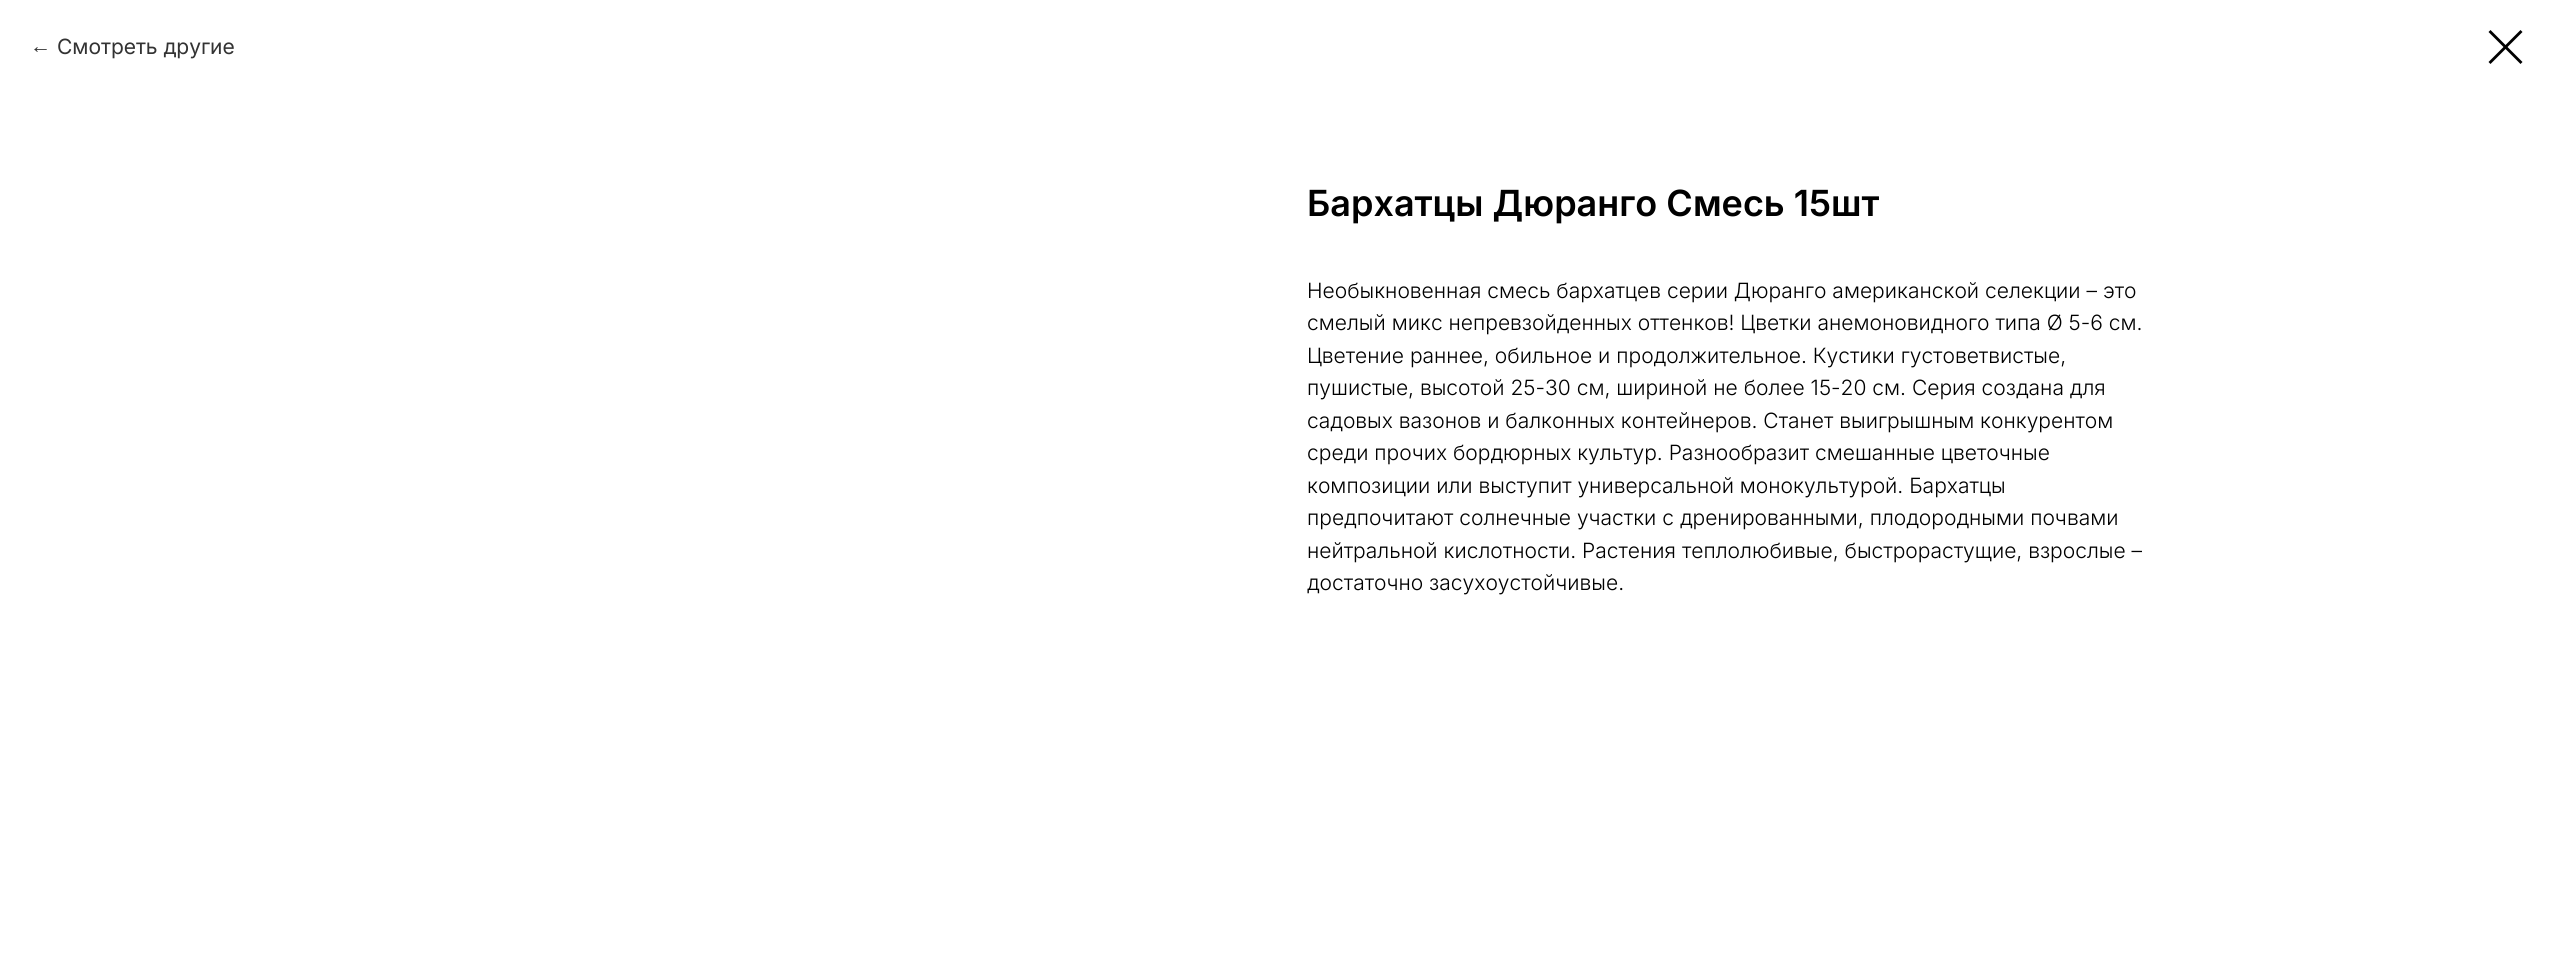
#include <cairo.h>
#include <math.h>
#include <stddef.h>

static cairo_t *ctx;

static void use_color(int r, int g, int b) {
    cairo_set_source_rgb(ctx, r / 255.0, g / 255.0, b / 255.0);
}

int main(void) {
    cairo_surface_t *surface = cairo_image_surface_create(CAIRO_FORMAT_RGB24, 2552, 957);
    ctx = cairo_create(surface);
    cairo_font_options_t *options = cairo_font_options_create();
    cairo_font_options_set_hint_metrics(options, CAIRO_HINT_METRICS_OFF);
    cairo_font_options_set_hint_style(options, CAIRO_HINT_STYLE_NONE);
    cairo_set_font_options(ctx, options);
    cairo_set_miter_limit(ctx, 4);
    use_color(255, 255, 255);
    cairo_paint(ctx);
    cairo_select_font_face(ctx, "Liberation Sans", CAIRO_FONT_SLANT_NORMAL, CAIRO_FONT_WEIGHT_NORMAL);
    cairo_set_font_size(ctx, 21);
    use_color(51, 51, 51);
    cairo_move_to(ctx, 30, 53);
    cairo_show_text(ctx, "←");
    cairo_select_font_face(ctx, "Inter", CAIRO_FONT_SLANT_NORMAL, CAIRO_FONT_WEIGHT_NORMAL);
    cairo_move_to(ctx, 57, 54);
    cairo_show_text(ctx, "Смотреть другие");
    use_color(0, 0, 0);
    cairo_set_fill_rule(ctx, CAIRO_FILL_RULE_EVEN_ODD);
    cairo_new_path(ctx);
    cairo_move_to(ctx, 2488.5, 32);
    cairo_line_to(ctx, 2490.5, 30);
    cairo_line_to(ctx, 2522.5, 62);
    cairo_line_to(ctx, 2520.5, 64);
    cairo_close_path(ctx);
    cairo_fill(ctx);
    cairo_new_path(ctx);
    cairo_move_to(ctx, 2520.5, 30);
    cairo_line_to(ctx, 2522.5, 32);
    cairo_line_to(ctx, 2490.5, 64);
    cairo_line_to(ctx, 2488.5, 62);
    cairo_close_path(ctx);
    cairo_fill(ctx);
    cairo_select_font_face(ctx, "Inter SemiBold", CAIRO_FONT_SLANT_NORMAL, CAIRO_FONT_WEIGHT_NORMAL);
    cairo_set_font_size(ctx, 36);
    cairo_move_to(ctx, 1307, 216);
    cairo_show_text(ctx, "Бархатцы Дюранго Смесь 15шт");
    cairo_select_font_face(ctx, "Inter Light", CAIRO_FONT_SLANT_NORMAL, CAIRO_FONT_WEIGHT_NORMAL);
    cairo_set_font_size(ctx, 21);
    cairo_move_to(ctx, 1307, 298);
    cairo_show_text(ctx, "Необыкновенная смесь бархатцев серии Дюранго американской селекции – это");
    cairo_move_to(ctx, 1307, 330);
    cairo_show_text(ctx, "смелый микс непревзойденных оттенков! Цветки анемоновидного типа Ø 5-6 см.");
    cairo_move_to(ctx, 1307, 363);
    cairo_show_text(ctx, "Цветение раннее, обильное и продолжительное. Кустики густоветвистые,");
    cairo_move_to(ctx, 1307, 395);
    cairo_show_text(ctx, "пушистые, высотой 25-30 cм, шириной не более 15-20 см. Серия создана для");
    cairo_move_to(ctx, 1307, 428);
    cairo_show_text(ctx, "садовых вазонов и балконных контейнеров. Станет выигрышным конкурентом");
    cairo_move_to(ctx, 1307, 460);
    cairo_show_text(ctx, "среди прочих бордюрных культур. Разнообразит смешанные цветочные");
    cairo_move_to(ctx, 1307, 493);
    cairo_show_text(ctx, "композиции или выступит универсальной монокультурой. Бархатцы");
    cairo_move_to(ctx, 1307, 525);
    cairo_show_text(ctx, "предпочитают солнечные участки с дренированными, плодородными почвами");
    cairo_move_to(ctx, 1307, 558);
    cairo_show_text(ctx, "нейтральной кислотности. Растения теплолюбивые, быстрорастущие, взрослые –");
    cairo_move_to(ctx, 1307, 590);
    cairo_show_text(ctx, "достаточно засухоустойчивые.");
    cairo_surface_write_to_png(surface, "result.png");
    cairo_font_options_destroy(options);
    cairo_destroy(ctx);
    cairo_surface_destroy(surface);
    return 0;
}
